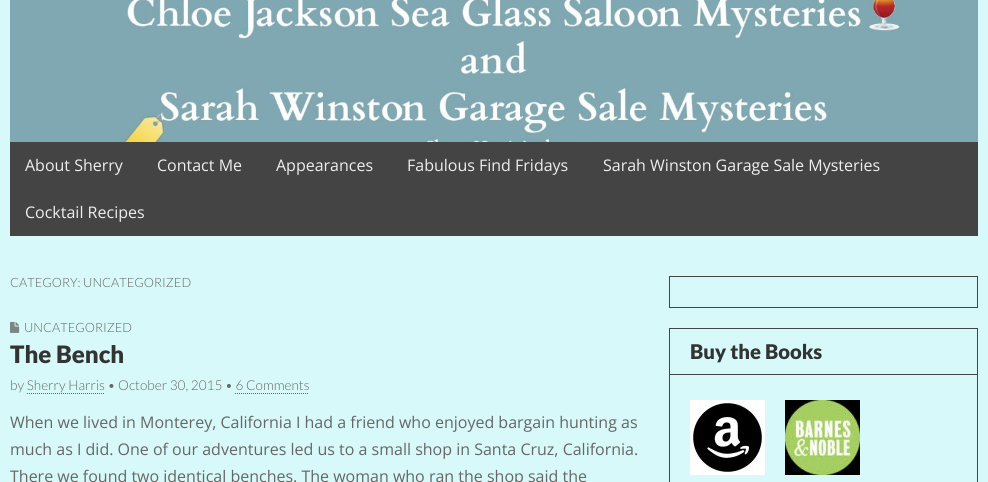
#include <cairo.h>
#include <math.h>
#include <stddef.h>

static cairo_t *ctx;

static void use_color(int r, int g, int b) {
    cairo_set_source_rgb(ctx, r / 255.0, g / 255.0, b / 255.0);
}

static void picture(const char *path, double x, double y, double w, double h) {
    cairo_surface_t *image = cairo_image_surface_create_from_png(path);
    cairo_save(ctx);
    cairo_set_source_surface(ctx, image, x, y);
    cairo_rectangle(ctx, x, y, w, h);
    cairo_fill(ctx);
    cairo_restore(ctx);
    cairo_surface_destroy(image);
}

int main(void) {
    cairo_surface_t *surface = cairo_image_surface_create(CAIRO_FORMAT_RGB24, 988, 482);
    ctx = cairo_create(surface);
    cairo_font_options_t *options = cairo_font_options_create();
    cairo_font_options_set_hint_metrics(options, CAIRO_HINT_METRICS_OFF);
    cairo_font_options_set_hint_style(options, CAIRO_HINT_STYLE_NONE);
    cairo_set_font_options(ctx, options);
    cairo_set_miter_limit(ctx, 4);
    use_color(215, 249, 249);
    cairo_paint(ctx);
    picture("img1.png", 10, 0, 968, 142);
    use_color(68, 68, 68);
    cairo_rectangle(ctx, 10, 142, 968, 94);
    cairo_fill(ctx);
    cairo_select_font_face(ctx, "Open Sans", CAIRO_FONT_SLANT_NORMAL, CAIRO_FONT_WEIGHT_NORMAL);
    cairo_set_font_size(ctx, 16);
    use_color(238, 238, 238);
    cairo_move_to(ctx, 25, 171);
    cairo_show_text(ctx, "About Sherry");
    cairo_move_to(ctx, 157, 171);
    cairo_show_text(ctx, "Contact Me");
    cairo_move_to(ctx, 276, 171);
    cairo_show_text(ctx, "Appearances");
    cairo_move_to(ctx, 407, 171);
    cairo_show_text(ctx, "Fabulous Find Fridays");
    cairo_move_to(ctx, 603, 171);
    cairo_show_text(ctx, "Sarah Winston Garage Sale Mysteries");
    cairo_move_to(ctx, 25, 218);
    cairo_show_text(ctx, "Cocktail Recipes");
    cairo_select_font_face(ctx, "Lato Light", CAIRO_FONT_SLANT_NORMAL, CAIRO_FONT_WEIGHT_NORMAL);
    cairo_set_font_size(ctx, 12.75);
    use_color(102, 102, 102);
    cairo_move_to(ctx, 10, 287);
    cairo_show_text(ctx, "CATEGORY: UNCATEGORIZED");
    picture("img2.png", 10, 321, 10, 12);
    cairo_move_to(ctx, 24, 332);
    cairo_show_text(ctx, "UNCATEGORIZED");
    cairo_select_font_face(ctx, "Lato Black", CAIRO_FONT_SLANT_NORMAL, CAIRO_FONT_WEIGHT_NORMAL);
    cairo_set_font_size(ctx, 24);
    use_color(51, 51, 51);
    cairo_move_to(ctx, 10, 363);
    cairo_show_text(ctx, "The Bench");
    cairo_select_font_face(ctx, "Lato Light", CAIRO_FONT_SLANT_NORMAL, CAIRO_FONT_WEIGHT_NORMAL);
    cairo_set_font_size(ctx, 13.6);
    use_color(102, 102, 102);
    cairo_move_to(ctx, 10, 390);
    cairo_show_text(ctx, "by Sherry Harris • October 30, 2015 • 6 Comments");
    cairo_new_path(ctx);
    cairo_move_to(ctx, 27, 393.5);
    cairo_line_to(ctx, 105, 393.5);
    cairo_set_line_width(ctx, 1);
    cairo_set_dash(ctx, (double[]){1, 1}, 2, 0);
    cairo_stroke(ctx);
    cairo_new_path(ctx);
    cairo_move_to(ctx, 235, 393.5);
    cairo_line_to(ctx, 309, 393.5);
    cairo_stroke(ctx);
    cairo_select_font_face(ctx, "Open Sans", CAIRO_FONT_SLANT_NORMAL, CAIRO_FONT_WEIGHT_NORMAL);
    cairo_set_font_size(ctx, 16);
    cairo_move_to(ctx, 10, 428);
    cairo_show_text(ctx, "When we lived in Monterey, California I had a friend who enjoyed bargain hunting as");
    cairo_move_to(ctx, 10, 455);
    cairo_show_text(ctx, "much as I did. One of our adventures led us to a small shop in Santa Cruz, California.");
    cairo_move_to(ctx, 10, 482);
    cairo_show_text(ctx, "There we found two identical benches. The woman who ran the shop said the");
    cairo_rectangle(ctx, 669.5, 276.5, 308, 31);
    use_color(68, 68, 68);
    cairo_set_dash(ctx, NULL, 0, 0);
    cairo_stroke(ctx);
    cairo_rectangle(ctx, 669.5, 328.5, 308, 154);
    cairo_stroke(ctx);
    cairo_rectangle(ctx, 670, 374, 307, 1);
    cairo_fill(ctx);
    cairo_select_font_face(ctx, "Lato Black", CAIRO_FONT_SLANT_NORMAL, CAIRO_FONT_WEIGHT_NORMAL);
    cairo_set_font_size(ctx, 20.25);
    use_color(51, 51, 51);
    cairo_move_to(ctx, 690, 359);
    cairo_show_text(ctx, "Buy the Books");
    picture("img3.png", 690, 400, 75, 75);
    picture("img4.png", 785, 400, 75, 75);
    cairo_surface_write_to_png(surface, "result.png");
    cairo_font_options_destroy(options);
    cairo_destroy(ctx);
    cairo_surface_destroy(surface);
    return 0;
}
